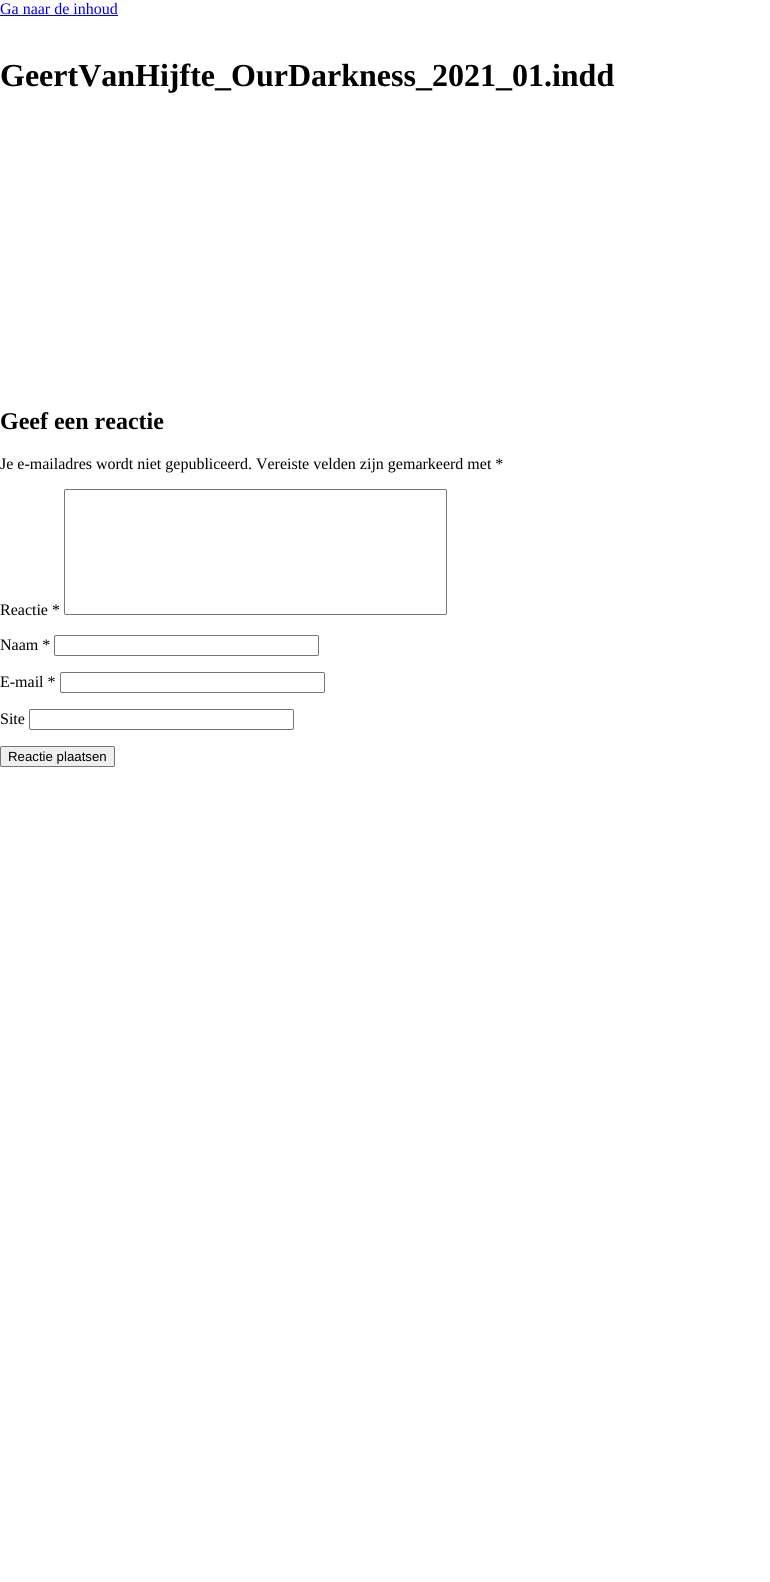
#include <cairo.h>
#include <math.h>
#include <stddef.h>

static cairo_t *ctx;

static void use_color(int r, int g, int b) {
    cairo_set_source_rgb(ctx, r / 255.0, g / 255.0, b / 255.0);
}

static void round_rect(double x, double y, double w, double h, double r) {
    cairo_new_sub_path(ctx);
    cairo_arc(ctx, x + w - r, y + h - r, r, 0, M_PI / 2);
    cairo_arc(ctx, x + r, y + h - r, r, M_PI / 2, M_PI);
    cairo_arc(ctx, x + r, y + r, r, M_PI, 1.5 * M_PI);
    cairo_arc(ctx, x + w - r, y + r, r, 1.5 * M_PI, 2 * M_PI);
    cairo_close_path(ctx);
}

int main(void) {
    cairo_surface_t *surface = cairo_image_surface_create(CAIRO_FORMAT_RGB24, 770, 1582);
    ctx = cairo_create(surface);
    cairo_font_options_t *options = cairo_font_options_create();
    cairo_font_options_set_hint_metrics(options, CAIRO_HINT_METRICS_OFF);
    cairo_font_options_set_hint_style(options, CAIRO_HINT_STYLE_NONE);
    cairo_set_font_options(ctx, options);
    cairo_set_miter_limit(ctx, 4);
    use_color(255, 255, 255);
    cairo_paint(ctx);
    cairo_select_font_face(ctx, "Liberation Serif", CAIRO_FONT_SLANT_NORMAL, CAIRO_FONT_WEIGHT_NORMAL);
    cairo_set_font_size(ctx, 16);
    use_color(0, 0, 238);
    cairo_move_to(ctx, 0, 14);
    cairo_show_text(ctx, "Ga naar de inhoud");
    cairo_rectangle(ctx, 0, 15, 118, 1);
    cairo_fill(ctx);
    cairo_select_font_face(ctx, "Liberation Serif", CAIRO_FONT_SLANT_NORMAL, CAIRO_FONT_WEIGHT_BOLD);
    cairo_set_font_size(ctx, 32);
    use_color(0, 0, 0);
    cairo_move_to(ctx, 0, 86);
    cairo_show_text(ctx, "GeertVanHijfte_OurDarkness_2021_01.indd");
    cairo_set_font_size(ctx, 24);
    cairo_move_to(ctx, 0, 429);
    cairo_show_text(ctx, "Geef een reactie");
    cairo_select_font_face(ctx, "Liberation Serif", CAIRO_FONT_SLANT_NORMAL, CAIRO_FONT_WEIGHT_NORMAL);
    cairo_set_font_size(ctx, 16);
    cairo_move_to(ctx, 0, 469);
    cairo_show_text(ctx, "Je e-mailadres wordt niet gepubliceerd. Vereiste velden zijn gemarkeerd met *");
    cairo_move_to(ctx, 0, 615);
    cairo_show_text(ctx, "Reactie *");
    round_rect(64.5, 489.5, 382, 125, 1.5);
    use_color(118, 118, 118);
    cairo_set_line_width(ctx, 1);
    cairo_stroke(ctx);
    use_color(0, 0, 0);
    cairo_move_to(ctx, 0, 650);
    cairo_show_text(ctx, "Naam *");
    round_rect(54.5, 635.5, 264, 20, 1.5);
    use_color(118, 118, 118);
    cairo_stroke(ctx);
    use_color(0, 0, 0);
    cairo_move_to(ctx, 0, 687);
    cairo_show_text(ctx, "E-mail *");
    round_rect(60.5, 672.5, 264, 20, 1.5);
    use_color(118, 118, 118);
    cairo_stroke(ctx);
    use_color(0, 0, 0);
    cairo_move_to(ctx, 0, 724);
    cairo_show_text(ctx, "Site");
    round_rect(29.5, 709.5, 264, 20, 1.5);
    use_color(118, 118, 118);
    cairo_stroke(ctx);
    use_color(239, 239, 239);
    round_rect(0.5, 746.5, 114, 20, 1.5);
    cairo_fill_preserve(ctx);
    use_color(118, 118, 118);
    cairo_stroke(ctx);
    cairo_select_font_face(ctx, "Liberation Sans", CAIRO_FONT_SLANT_NORMAL, CAIRO_FONT_WEIGHT_NORMAL);
    cairo_set_font_size(ctx, 13.25);
    use_color(0, 0, 0);
    cairo_move_to(ctx, 8, 761);
    cairo_show_text(ctx, "Reactie plaatsen");
    cairo_surface_write_to_png(surface, "result.png");
    cairo_font_options_destroy(options);
    cairo_destroy(ctx);
    cairo_surface_destroy(surface);
    return 0;
}
